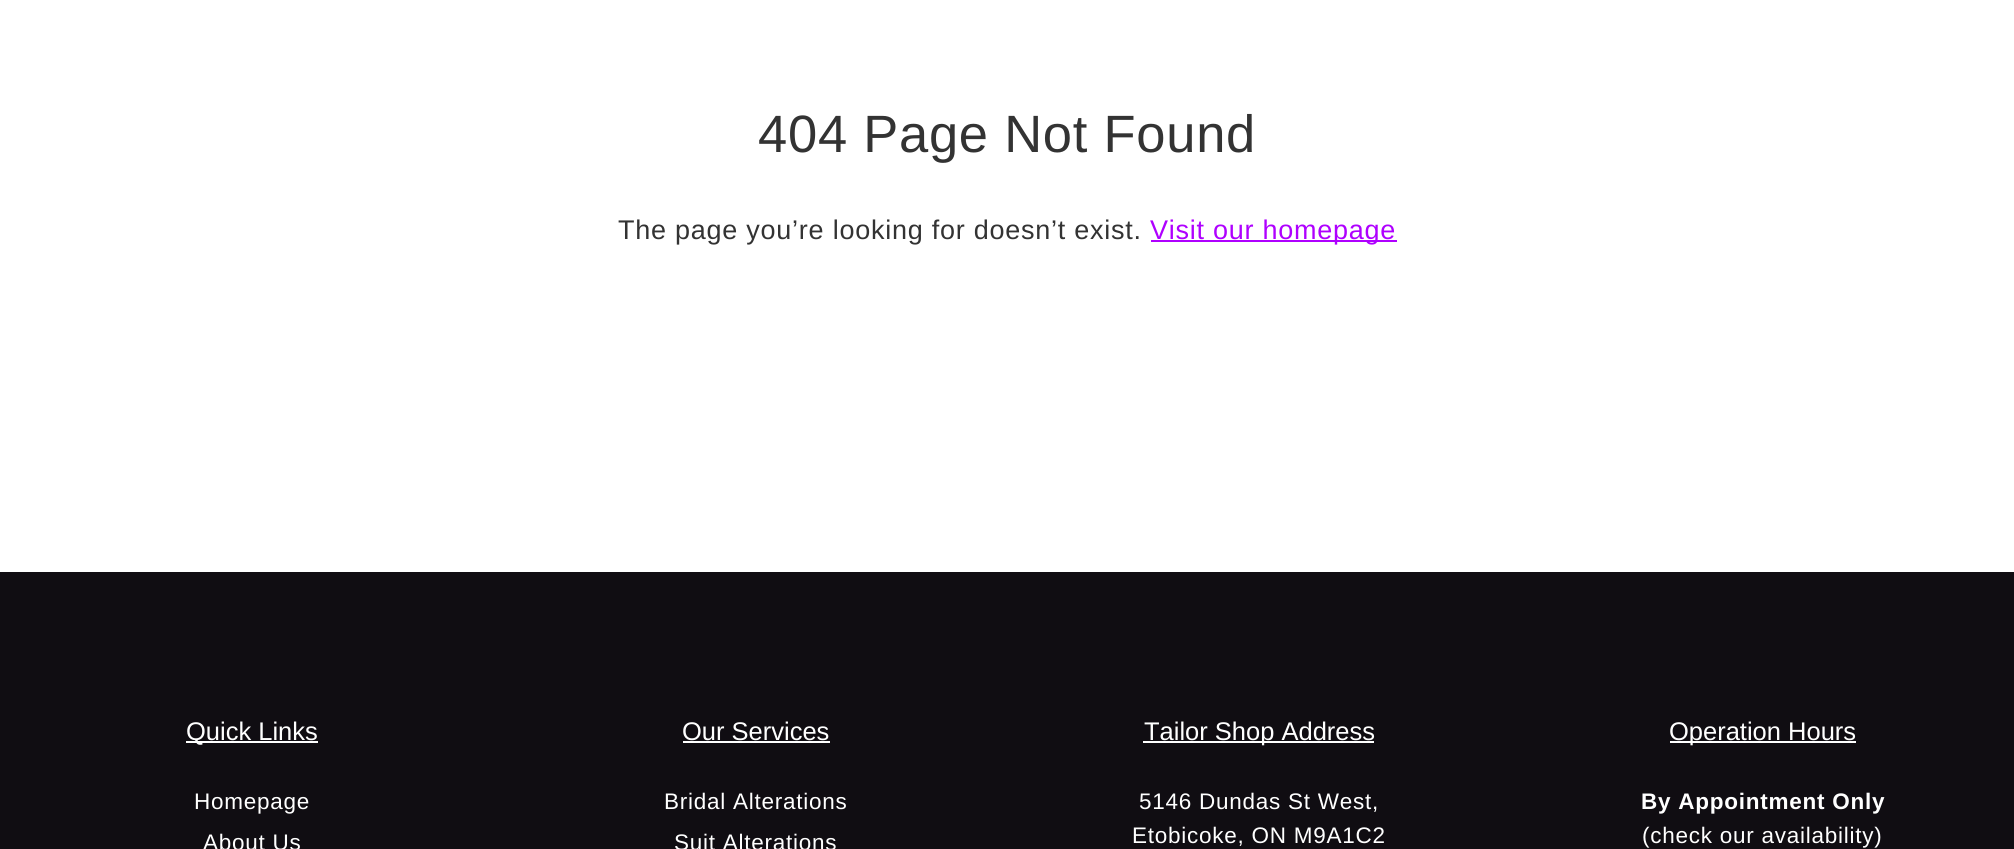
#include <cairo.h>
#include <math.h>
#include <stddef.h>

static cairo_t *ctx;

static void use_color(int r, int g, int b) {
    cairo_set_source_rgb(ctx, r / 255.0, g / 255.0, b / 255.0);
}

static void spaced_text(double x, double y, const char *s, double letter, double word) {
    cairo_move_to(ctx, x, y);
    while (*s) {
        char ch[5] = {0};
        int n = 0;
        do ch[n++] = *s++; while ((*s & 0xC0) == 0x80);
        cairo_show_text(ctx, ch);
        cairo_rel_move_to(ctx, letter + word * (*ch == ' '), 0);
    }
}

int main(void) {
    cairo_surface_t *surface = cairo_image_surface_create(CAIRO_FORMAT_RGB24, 2014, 849);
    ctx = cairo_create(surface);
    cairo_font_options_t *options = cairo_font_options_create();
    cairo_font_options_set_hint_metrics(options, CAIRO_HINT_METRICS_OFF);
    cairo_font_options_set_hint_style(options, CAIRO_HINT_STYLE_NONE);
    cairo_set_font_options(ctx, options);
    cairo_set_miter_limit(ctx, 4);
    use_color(255, 255, 255);
    cairo_paint(ctx);
    cairo_select_font_face(ctx, "Liberation Sans", CAIRO_FONT_SLANT_NORMAL, CAIRO_FONT_WEIGHT_NORMAL);
    cairo_set_font_size(ctx, 52.5);
    use_color(51, 51, 51);
    spaced_text(758, 152, "404 Page Not Found", 0.75, 0);
    cairo_set_font_size(ctx, 27);
    spaced_text(618, 239, "The page you’re looking for doesn’t exist.", 0.75, 0);
    use_color(175, 0, 255);
    cairo_rectangle(ctx, 1151, 240, 246, 2);
    cairo_fill(ctx);
    spaced_text(1150, 239, "Visit our homepage", 0.75, 0);
    use_color(16, 13, 18);
    cairo_rectangle(ctx, 0, 572, 2014, 277);
    cairo_fill(ctx);
    use_color(255, 255, 255);
    cairo_rectangle(ctx, 186, 741, 132, 2);
    cairo_fill(ctx);
    cairo_set_font_size(ctx, 25.5);
    cairo_move_to(ctx, 186, 740);
    cairo_show_text(ctx, "Quick Links");
    cairo_set_font_size(ctx, 22.5);
    spaced_text(194, 809, "Homepage", 0.75, 0);
    spaced_text(203, 850, "About Us", 0.75, 0);
    cairo_set_font_size(ctx, 25.5);
    cairo_move_to(ctx, 682, 740);
    cairo_show_text(ctx, "Our Services");
    cairo_rectangle(ctx, 683, 741, 147, 2);
    cairo_fill(ctx);
    cairo_set_font_size(ctx, 22.5);
    spaced_text(664, 809, "Bridal Alterations", 0.75, 0);
    spaced_text(674, 850, "Suit Alterations", 0.75, 0);
    cairo_rectangle(ctx, 1143, 741, 231, 2);
    cairo_fill(ctx);
    cairo_set_font_size(ctx, 25.5);
    cairo_move_to(ctx, 1144, 740);
    cairo_show_text(ctx, "Tailor Shop Address");
    cairo_set_font_size(ctx, 22.5);
    spaced_text(1139, 809, "5146 Dundas St West,", 0.75, 0);
    spaced_text(1132, 843, "Etobicoke, ON M9A1C2", 0.75, 0);
    cairo_rectangle(ctx, 1670, 741, 186, 2);
    cairo_fill(ctx);
    cairo_set_font_size(ctx, 25.5);
    cairo_move_to(ctx, 1669, 740);
    cairo_show_text(ctx, "Operation Hours");
    cairo_select_font_face(ctx, "Liberation Sans", CAIRO_FONT_SLANT_NORMAL, CAIRO_FONT_WEIGHT_BOLD);
    cairo_set_font_size(ctx, 22.5);
    spaced_text(1641, 809, "By Appointment Only", 0.75, 0);
    cairo_select_font_face(ctx, "Liberation Sans", CAIRO_FONT_SLANT_NORMAL, CAIRO_FONT_WEIGHT_NORMAL);
    spaced_text(1642, 843, "(check our availability)", 0.75, 0);
    cairo_surface_write_to_png(surface, "result.png");
    cairo_font_options_destroy(options);
    cairo_destroy(ctx);
    cairo_surface_destroy(surface);
    return 0;
}
